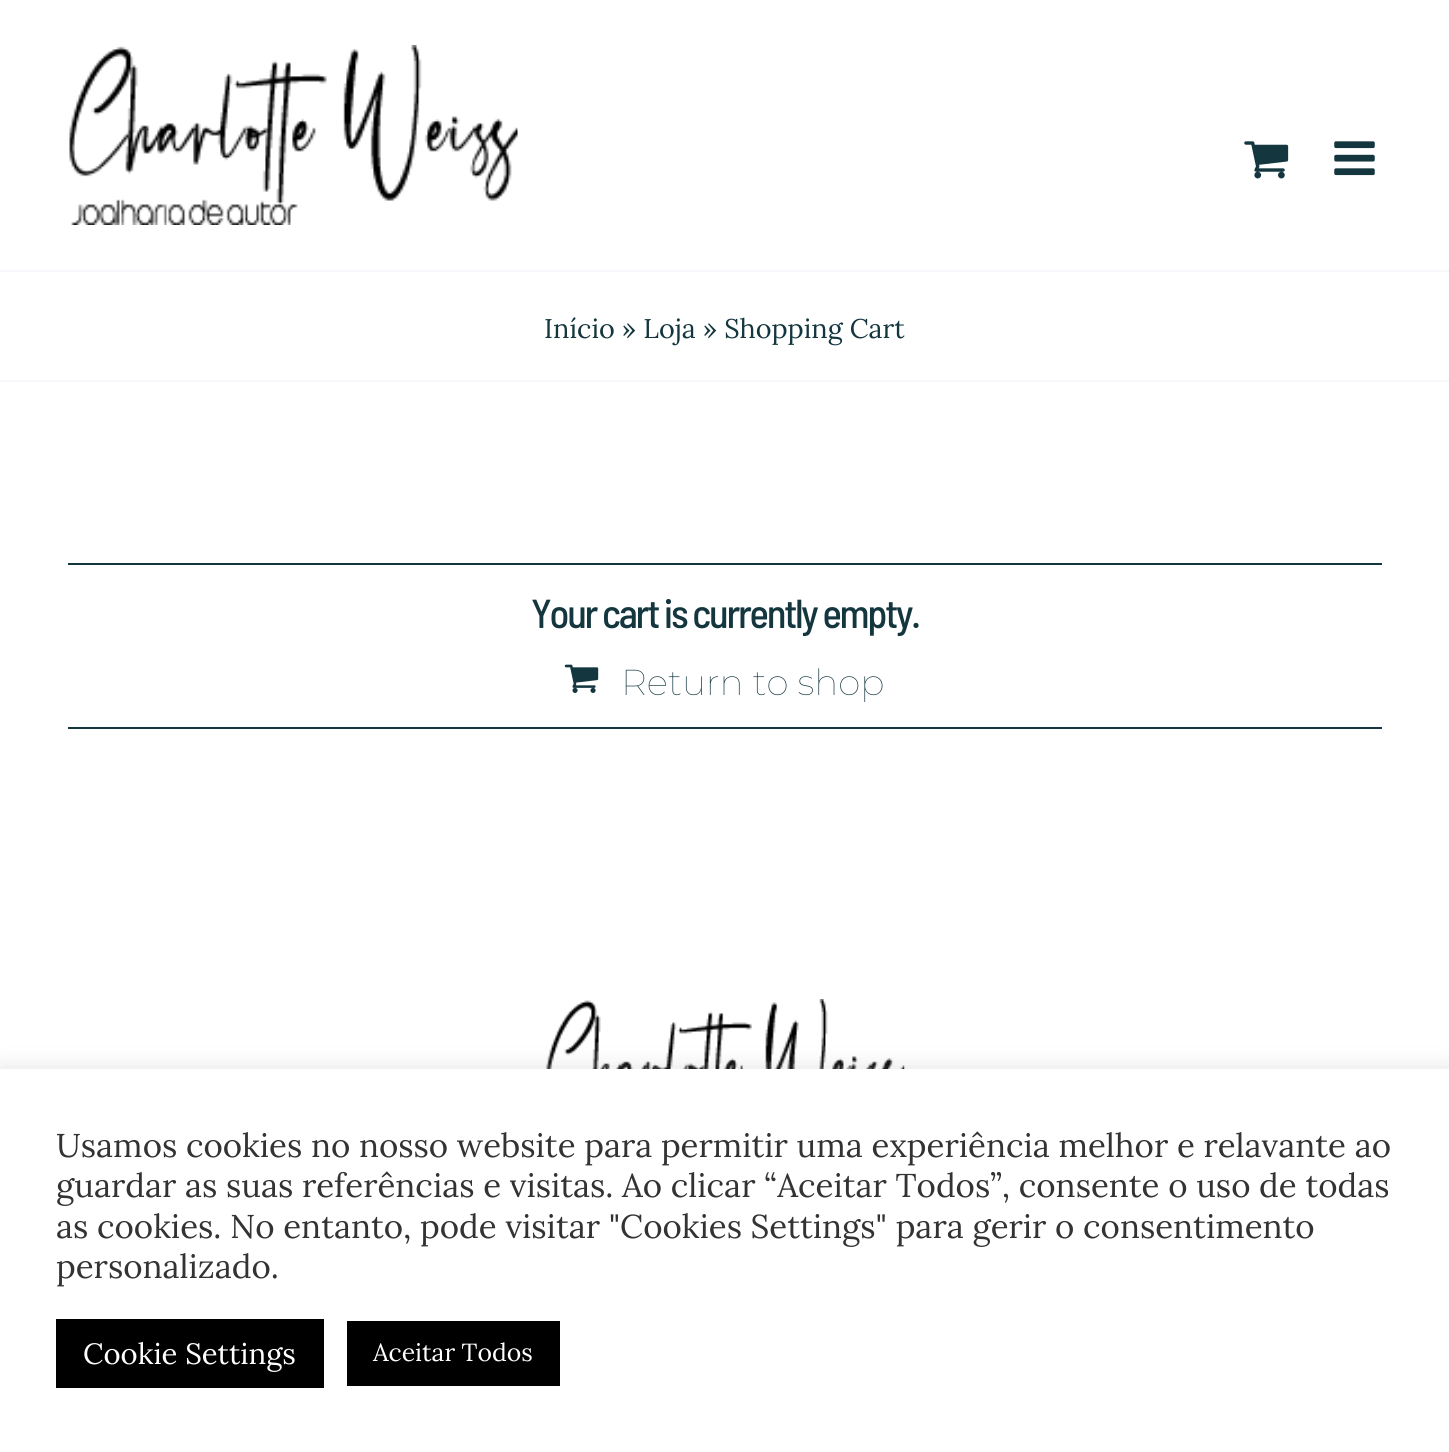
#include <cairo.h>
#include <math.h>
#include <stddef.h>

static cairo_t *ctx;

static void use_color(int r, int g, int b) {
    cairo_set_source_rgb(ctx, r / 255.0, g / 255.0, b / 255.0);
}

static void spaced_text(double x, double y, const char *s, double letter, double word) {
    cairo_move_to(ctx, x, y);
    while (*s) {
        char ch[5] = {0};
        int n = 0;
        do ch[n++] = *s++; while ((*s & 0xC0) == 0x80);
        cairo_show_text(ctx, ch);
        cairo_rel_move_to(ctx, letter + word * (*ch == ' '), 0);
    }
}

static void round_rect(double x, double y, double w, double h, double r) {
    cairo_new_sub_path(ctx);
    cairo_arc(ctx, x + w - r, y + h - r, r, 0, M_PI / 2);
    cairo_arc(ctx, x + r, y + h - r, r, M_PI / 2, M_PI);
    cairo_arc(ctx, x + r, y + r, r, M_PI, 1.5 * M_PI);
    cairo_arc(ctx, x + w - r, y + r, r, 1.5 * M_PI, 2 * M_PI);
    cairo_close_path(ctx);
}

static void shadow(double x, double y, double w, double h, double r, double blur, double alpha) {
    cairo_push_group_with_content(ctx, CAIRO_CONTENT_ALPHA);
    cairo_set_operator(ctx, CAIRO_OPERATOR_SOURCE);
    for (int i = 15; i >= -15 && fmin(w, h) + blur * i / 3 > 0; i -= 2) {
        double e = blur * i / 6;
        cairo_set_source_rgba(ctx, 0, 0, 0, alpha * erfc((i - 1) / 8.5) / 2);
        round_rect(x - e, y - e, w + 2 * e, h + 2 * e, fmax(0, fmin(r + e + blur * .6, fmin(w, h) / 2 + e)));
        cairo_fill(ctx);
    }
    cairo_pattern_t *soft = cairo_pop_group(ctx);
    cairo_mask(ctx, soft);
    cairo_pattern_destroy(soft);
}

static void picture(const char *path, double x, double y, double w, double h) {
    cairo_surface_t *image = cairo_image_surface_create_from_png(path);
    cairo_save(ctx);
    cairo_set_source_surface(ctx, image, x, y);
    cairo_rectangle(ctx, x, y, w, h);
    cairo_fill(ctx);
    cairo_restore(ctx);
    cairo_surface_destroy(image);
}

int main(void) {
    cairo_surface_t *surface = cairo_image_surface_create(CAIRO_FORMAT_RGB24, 1449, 1452);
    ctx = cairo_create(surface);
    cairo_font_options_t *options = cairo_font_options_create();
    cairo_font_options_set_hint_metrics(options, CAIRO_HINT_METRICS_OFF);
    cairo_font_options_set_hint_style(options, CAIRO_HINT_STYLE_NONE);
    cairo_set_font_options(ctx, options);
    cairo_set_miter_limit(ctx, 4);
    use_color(255, 255, 255);
    cairo_paint(ctx);
    picture("img1.png", 69, 45, 449, 180);
    picture("img2.png", 1244, 141, 45, 38);
    picture("img3.png", 1334, 141, 41, 35);
    use_color(248, 246, 250);
    cairo_rectangle(ctx, 0, 270, 1449, 2);
    cairo_fill(ctx);
    cairo_rectangle(ctx, 0, 380, 1449, 2);
    cairo_fill(ctx);
    cairo_select_font_face(ctx, "Lora", CAIRO_FONT_SLANT_NORMAL, CAIRO_FONT_WEIGHT_NORMAL);
    cairo_set_font_size(ctx, 27);
    use_color(20, 54, 62);
    cairo_move_to(ctx, 544, 338);
    cairo_show_text(ctx, "Início » Loja » Shopping Cart");
    cairo_rectangle(ctx, 68, 563, 1314, 2);
    cairo_fill(ctx);
    cairo_select_font_face(ctx, "Barlow Semi Condensed Medium", CAIRO_FONT_SLANT_NORMAL, CAIRO_FONT_WEIGHT_NORMAL);
    cairo_set_font_size(ctx, 40.5);
    spaced_text(531, 628, "Your cart is currently empty.", -2.25, 0);
    cairo_rectangle(ctx, 68, 727, 1314, 2);
    cairo_fill(ctx);
    picture("img4.png", 564, 664, 35, 29);
    cairo_select_font_face(ctx, "Montserrat Thin", CAIRO_FONT_SLANT_NORMAL, CAIRO_FONT_WEIGHT_NORMAL);
    cairo_set_font_size(ctx, 36);
    cairo_move_to(ctx, 621, 695);
    cairo_show_text(ctx, "Return to shop");
    picture("img5.png", 546, 999, 359, 70);
    use_color(172, 171, 171);
    shadow(0, 1067, 1449, 384, 0, 11, 0.3);
    use_color(255, 255, 255);
    cairo_rectangle(ctx, 0, 1069, 1449, 383);
    cairo_fill(ctx);
    cairo_select_font_face(ctx, "Lora", CAIRO_FONT_SLANT_NORMAL, CAIRO_FONT_WEIGHT_NORMAL);
    cairo_set_font_size(ctx, 33);
    use_color(51, 51, 51);
    cairo_move_to(ctx, 56, 1157);
    cairo_show_text(ctx, "Usamos cookies no nosso website para permitir uma experiência melhor e relavante ao");
    cairo_move_to(ctx, 56, 1197);
    cairo_show_text(ctx, "guardar as suas referências e visitas. Ao clicar “Aceitar Todos”, consente o uso de todas");
    cairo_move_to(ctx, 56, 1238);
    cairo_show_text(ctx, "as cookies. No entanto, pode visitar \"Cookies Settings\" para gerir o consentimento");
    cairo_move_to(ctx, 56, 1278);
    cairo_show_text(ctx, "personalizado.");
    use_color(0, 0, 0);
    cairo_rectangle(ctx, 56, 1319, 268, 69);
    cairo_fill(ctx);
    cairo_set_font_size(ctx, 29.25);
    use_color(255, 255, 255);
    cairo_move_to(ctx, 83, 1364);
    cairo_show_text(ctx, "Cookie Settings");
    use_color(0, 0, 0);
    cairo_rectangle(ctx, 347, 1321, 213, 65);
    cairo_fill(ctx);
    cairo_set_font_size(ctx, 24.75);
    use_color(255, 255, 255);
    cairo_move_to(ctx, 373, 1361);
    cairo_show_text(ctx, "Aceitar Todos");
    cairo_surface_write_to_png(surface, "result.png");
    cairo_font_options_destroy(options);
    cairo_destroy(ctx);
    cairo_surface_destroy(surface);
    return 0;
}
